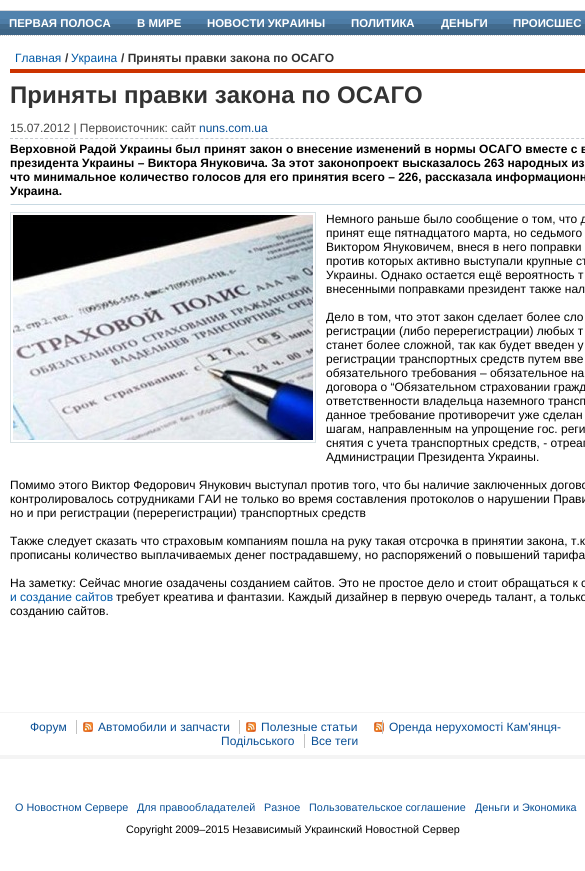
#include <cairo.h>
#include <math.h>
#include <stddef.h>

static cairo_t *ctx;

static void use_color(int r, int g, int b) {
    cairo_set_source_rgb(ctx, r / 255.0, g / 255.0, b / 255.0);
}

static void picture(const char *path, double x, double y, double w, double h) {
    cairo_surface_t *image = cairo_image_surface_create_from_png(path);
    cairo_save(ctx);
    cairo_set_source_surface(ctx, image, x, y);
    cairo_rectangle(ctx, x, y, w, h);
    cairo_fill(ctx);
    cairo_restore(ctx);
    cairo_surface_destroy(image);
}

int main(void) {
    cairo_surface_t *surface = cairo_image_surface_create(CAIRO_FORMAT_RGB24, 585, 871);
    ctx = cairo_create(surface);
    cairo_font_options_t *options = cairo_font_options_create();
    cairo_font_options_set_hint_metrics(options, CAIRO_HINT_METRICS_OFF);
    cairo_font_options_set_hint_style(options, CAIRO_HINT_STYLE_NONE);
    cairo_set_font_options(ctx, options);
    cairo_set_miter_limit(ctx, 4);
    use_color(255, 255, 255);
    cairo_paint(ctx);
    picture("img1.png", 0, 11, 585, 24);
    use_color(216, 216, 220);
    cairo_rectangle(ctx, 0, 10, 585, 1);
    cairo_fill(ctx);
    cairo_select_font_face(ctx, "Liberation Sans", CAIRO_FONT_SLANT_NORMAL, CAIRO_FONT_WEIGHT_BOLD);
    cairo_set_font_size(ctx, 11.4);
    use_color(255, 255, 255);
    cairo_move_to(ctx, 9, 27);
    cairo_show_text(ctx, "ПЕРВАЯ ПОЛОСА");
    cairo_move_to(ctx, 137, 27);
    cairo_show_text(ctx, "В МИРЕ");
    cairo_move_to(ctx, 207, 27);
    cairo_show_text(ctx, "НОВОСТИ УКРАИНЫ");
    cairo_move_to(ctx, 351, 27);
    cairo_show_text(ctx, "ПОЛИТИКА");
    cairo_move_to(ctx, 441, 27);
    cairo_show_text(ctx, "ДЕНЬГИ");
    cairo_move_to(ctx, 513, 27);
    cairo_show_text(ctx, "ПРОИСШЕС");
    cairo_new_path(ctx);
    cairo_move_to(ctx, 0, 35.5);
    cairo_line_to(ctx, 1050, 35.5);
    use_color(204, 204, 204);
    cairo_set_line_width(ctx, 1);
    cairo_set_dash(ctx, (double[]){1, 1}, 2, 0);
    cairo_stroke(ctx);
    use_color(204, 51, 0);
    cairo_rectangle(ctx, 10, 69, 575, 4);
    cairo_fill(ctx);
    cairo_select_font_face(ctx, "Liberation Sans", CAIRO_FONT_SLANT_NORMAL, CAIRO_FONT_WEIGHT_NORMAL);
    cairo_set_font_size(ctx, 12);
    use_color(0, 88, 166);
    cairo_move_to(ctx, 15, 62);
    cairo_show_text(ctx, "Главная");
    cairo_select_font_face(ctx, "Liberation Sans", CAIRO_FONT_SLANT_NORMAL, CAIRO_FONT_WEIGHT_BOLD);
    use_color(51, 51, 51);
    cairo_move_to(ctx, 65, 62);
    cairo_show_text(ctx, "/");
    cairo_select_font_face(ctx, "Liberation Sans", CAIRO_FONT_SLANT_NORMAL, CAIRO_FONT_WEIGHT_NORMAL);
    use_color(0, 88, 166);
    cairo_move_to(ctx, 71, 62);
    cairo_show_text(ctx, "Украина");
    cairo_select_font_face(ctx, "Liberation Sans", CAIRO_FONT_SLANT_NORMAL, CAIRO_FONT_WEIGHT_BOLD);
    use_color(51, 51, 51);
    cairo_move_to(ctx, 121, 62);
    cairo_show_text(ctx, "/ Приняты правки закона по ОСАГО");
    cairo_set_font_size(ctx, 24);
    cairo_move_to(ctx, 10, 103);
    cairo_show_text(ctx, "Приняты правки закона по ОСАГО");
    cairo_select_font_face(ctx, "Liberation Sans", CAIRO_FONT_SLANT_NORMAL, CAIRO_FONT_WEIGHT_NORMAL);
    cairo_set_font_size(ctx, 12);
    use_color(68, 68, 68);
    cairo_move_to(ctx, 10, 132);
    cairo_show_text(ctx, "15.07.2012 | Первоисточник: сайт");
    use_color(9, 79, 149);
    cairo_move_to(ctx, 199, 132);
    cairo_show_text(ctx, "nuns.com.ua");
    cairo_new_path(ctx);
    cairo_move_to(ctx, 10, 138.5);
    cairo_line_to(ctx, 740, 138.5);
    use_color(199, 203, 208);
    cairo_set_dash(ctx, (double[]){3, 2.01}, 2, 0);
    cairo_stroke(ctx);
    cairo_select_font_face(ctx, "Liberation Sans", CAIRO_FONT_SLANT_NORMAL, CAIRO_FONT_WEIGHT_BOLD);
    use_color(0, 0, 0);
    cairo_move_to(ctx, 10, 153);
    cairo_show_text(ctx, "Верховной Радой Украины был принят закон о внесение изменений в нормы ОСАГО вместе с в");
    cairo_move_to(ctx, 10, 167);
    cairo_show_text(ctx, "президента Украины – Виктора Януковича. За этот законопроект высказалось 263 народных из");
    cairo_move_to(ctx, 10, 181);
    cairo_show_text(ctx, "что минимальное количество голосов для его принятия всего – 226, рассказала информационн");
    cairo_move_to(ctx, 10, 195);
    cairo_show_text(ctx, "Украина.");
    use_color(200, 217, 226);
    cairo_new_path(ctx);
    cairo_move_to(ctx, 10, 204);
    cairo_line_to(ctx, 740, 204);
    cairo_line_to(ctx, 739, 205);
    cairo_line_to(ctx, 11, 205);
    cairo_close_path(ctx);
    cairo_fill(ctx);
    cairo_rectangle(ctx, 10.5, 212.5, 305, 230);
    use_color(217, 226, 229);
    cairo_set_dash(ctx, NULL, 0, 0);
    cairo_stroke(ctx);
    picture("img2.png", 13, 215, 300, 225);
    cairo_select_font_face(ctx, "Liberation Sans", CAIRO_FONT_SLANT_NORMAL, CAIRO_FONT_WEIGHT_NORMAL);
    use_color(0, 0, 0);
    cairo_move_to(ctx, 326, 223);
    cairo_show_text(ctx, "Немного раньше было сообщение о том, что д");
    cairo_move_to(ctx, 326, 237);
    cairo_show_text(ctx, "принят еще пятнадцатого марта, но седьмого");
    cairo_move_to(ctx, 326, 251);
    cairo_show_text(ctx, "Виктором Януковичем, внеся в него поправки");
    cairo_move_to(ctx, 326, 265);
    cairo_show_text(ctx, "против которых активно выступали крупные ст");
    cairo_move_to(ctx, 326, 279);
    cairo_show_text(ctx, "Украины. Однако остается ещё вероятность т");
    cairo_move_to(ctx, 326, 293);
    cairo_show_text(ctx, "внесенными поправками президент также нал");
    cairo_move_to(ctx, 326, 321);
    cairo_show_text(ctx, "Дело в том, что этот закон сделает более сло");
    cairo_move_to(ctx, 326, 335);
    cairo_show_text(ctx, "регистрации (либо перерегистрации) любых т");
    cairo_move_to(ctx, 326, 349);
    cairo_show_text(ctx, "станет более сложной, так как будет введен у");
    cairo_move_to(ctx, 326, 363);
    cairo_show_text(ctx, "регистрации транспортных средств путем вве");
    cairo_move_to(ctx, 326, 377);
    cairo_show_text(ctx, "обязательного требования – обязательное на");
    cairo_move_to(ctx, 326, 391);
    cairo_show_text(ctx, "договора о “Обязательном страховании гражд");
    cairo_move_to(ctx, 326, 405);
    cairo_show_text(ctx, "ответственности владельца наземного трансп");
    cairo_move_to(ctx, 326, 419);
    cairo_show_text(ctx, "данное требование противоречит уже сделан");
    cairo_move_to(ctx, 326, 433);
    cairo_show_text(ctx, "шагам, направленным на упрощение гос. реги");
    cairo_move_to(ctx, 326, 447);
    cairo_show_text(ctx, "снятия с учета транспортных средств, - отреаг");
    cairo_move_to(ctx, 326, 461);
    cairo_show_text(ctx, "Администрации Президента Украины.");
    cairo_move_to(ctx, 10, 489);
    cairo_show_text(ctx, "Помимо этого Виктор Федорович Янукович выступал против того, что бы наличие заключенных догово");
    cairo_move_to(ctx, 10, 503);
    cairo_show_text(ctx, "контролировалось сотрудниками ГАИ не только во время составления протоколов о нарушении Прави");
    cairo_move_to(ctx, 10, 517);
    cairo_show_text(ctx, "но и при регистрации (перерегистрации) транспортных средств");
    cairo_move_to(ctx, 10, 545);
    cairo_show_text(ctx, "Также следует сказать что страховым компаниям пошла на руку такая отсрочка в принятии закона, т.к");
    cairo_move_to(ctx, 10, 559);
    cairo_show_text(ctx, "прописаны количество выплачиваемых денег пострадавшему, но распоряжений о повышений тарифа");
    cairo_move_to(ctx, 10, 587);
    cairo_show_text(ctx, "На заметку: Сейчас многие озадачены созданием сайтов. Это не простое дело и стоит обращаться к с");
    use_color(0, 88, 166);
    cairo_move_to(ctx, 10, 601);
    cairo_show_text(ctx, "и создание сайтов");
    use_color(0, 0, 0);
    cairo_move_to(ctx, 116, 601);
    cairo_show_text(ctx, "требует креатива и фантазии. Каждый дизайнер в первую очередь талант, а только");
    cairo_move_to(ctx, 10, 615);
    cairo_show_text(ctx, "созданию сайтов.");
    use_color(244, 244, 244);
    cairo_rectangle(ctx, 0, 755, 585, 4);
    cairo_fill(ctx);
    cairo_rectangle(ctx, 0, 712, 585, 1);
    cairo_fill(ctx);
    use_color(9, 79, 149);
    cairo_move_to(ctx, 30, 731);
    cairo_show_text(ctx, "Форум");
    picture("img3.png", 83, 722, 10, 10);
    cairo_move_to(ctx, 98, 731);
    cairo_show_text(ctx, "Автомобили и запчасти");
    use_color(194, 194, 194);
    cairo_rectangle(ctx, 76, 720, 1, 14);
    cairo_fill(ctx);
    picture("img3.png", 246, 722, 10, 10);
    use_color(9, 79, 149);
    cairo_move_to(ctx, 261, 731);
    cairo_show_text(ctx, "Полезные статьи");
    use_color(194, 194, 194);
    cairo_rectangle(ctx, 239, 720, 1, 14);
    cairo_fill(ctx);
    picture("img3.png", 374, 722, 10, 10);
    use_color(9, 79, 149);
    cairo_move_to(ctx, 389, 731);
    cairo_show_text(ctx, "Оренда нерухомості Кам'янця-");
    use_color(194, 194, 194);
    cairo_rectangle(ctx, 382, 720, 1, 14);
    cairo_fill(ctx);
    use_color(9, 79, 149);
    cairo_move_to(ctx, 221, 745);
    cairo_show_text(ctx, "Подільського");
    cairo_move_to(ctx, 311, 745);
    cairo_show_text(ctx, "Все теги");
    use_color(194, 194, 194);
    cairo_rectangle(ctx, 304, 734, 1, 14);
    cairo_fill(ctx);
    cairo_set_font_size(ctx, 10.8);
    use_color(9, 79, 149);
    cairo_move_to(ctx, 15, 811);
    cairo_show_text(ctx, "О Новостном Сервере");
    cairo_move_to(ctx, 137, 811);
    cairo_show_text(ctx, "Для правообладателей");
    cairo_move_to(ctx, 264, 811);
    cairo_show_text(ctx, "Разное");
    cairo_move_to(ctx, 309, 811);
    cairo_show_text(ctx, "Пользовательское соглашение");
    cairo_move_to(ctx, 475, 811);
    cairo_show_text(ctx, "Деньги и Экономика");
    use_color(0, 0, 0);
    cairo_move_to(ctx, 126, 833);
    cairo_show_text(ctx, "Copyright 2009–2015 Независимый Украинский Новостной Сервер");
    cairo_surface_write_to_png(surface, "result.png");
    cairo_font_options_destroy(options);
    cairo_destroy(ctx);
    cairo_surface_destroy(surface);
    return 0;
}
